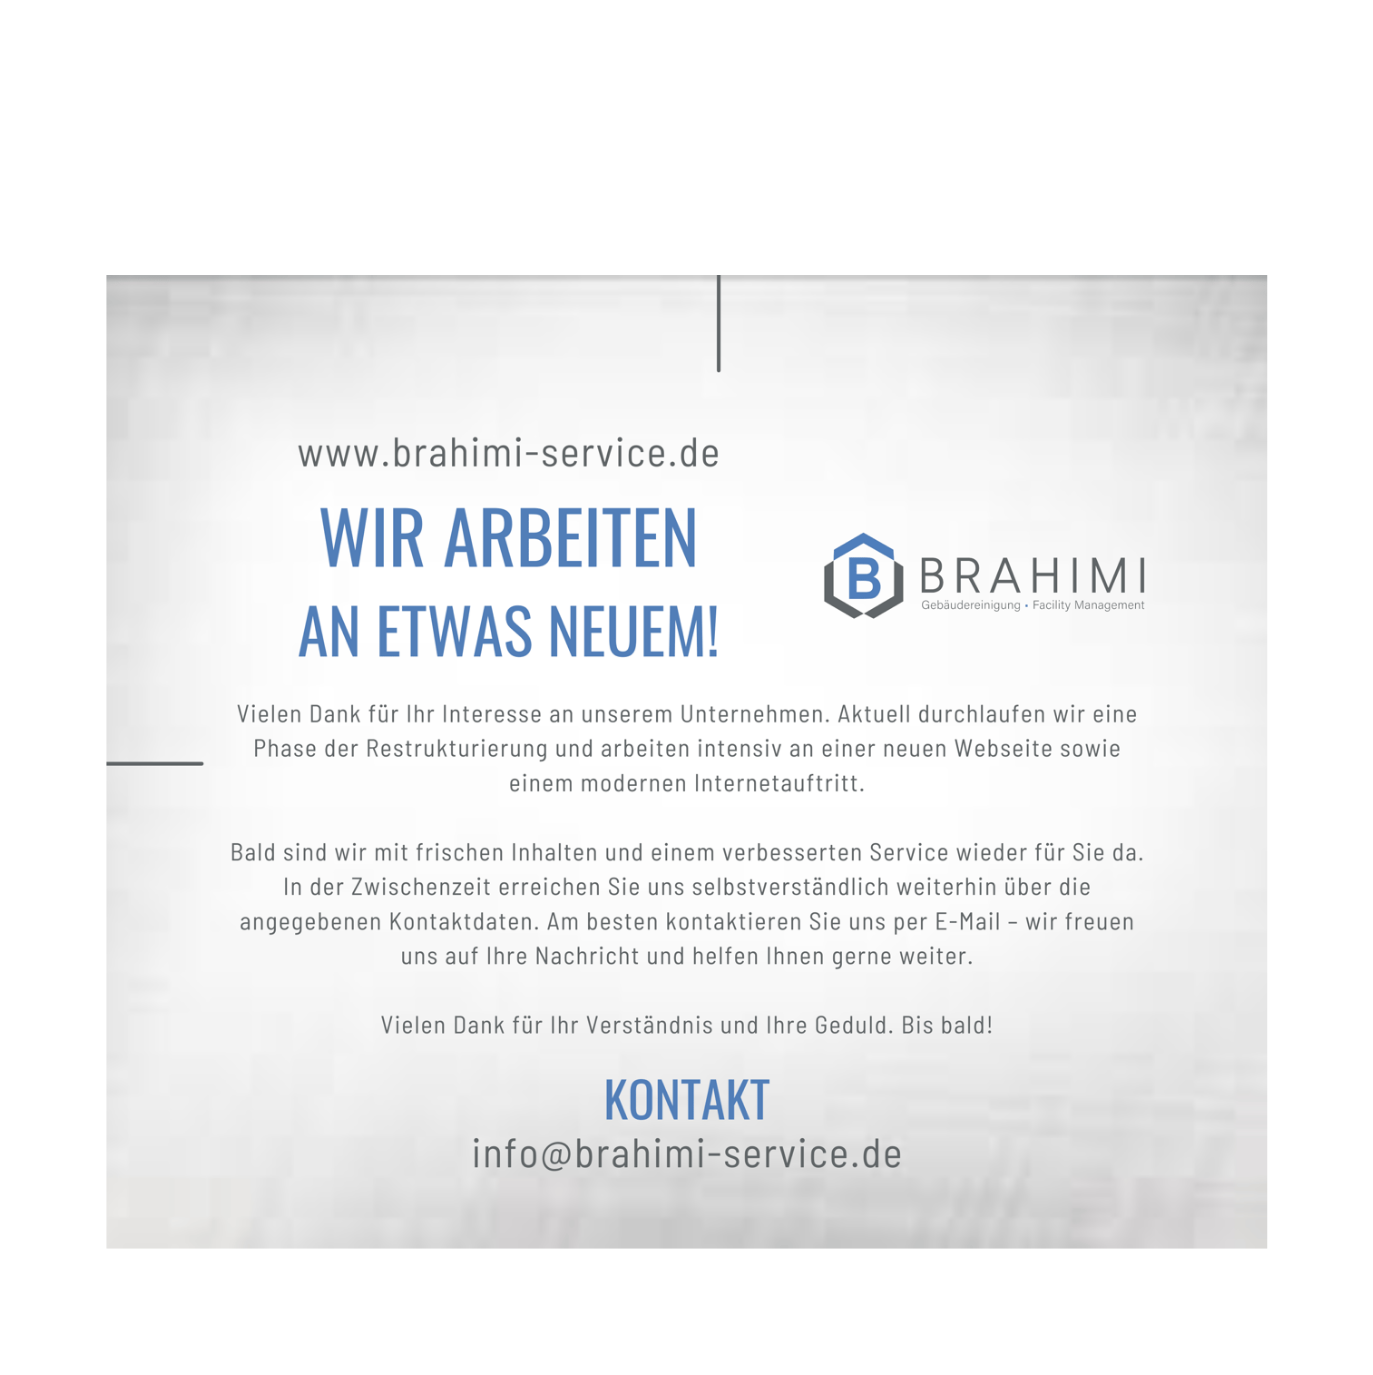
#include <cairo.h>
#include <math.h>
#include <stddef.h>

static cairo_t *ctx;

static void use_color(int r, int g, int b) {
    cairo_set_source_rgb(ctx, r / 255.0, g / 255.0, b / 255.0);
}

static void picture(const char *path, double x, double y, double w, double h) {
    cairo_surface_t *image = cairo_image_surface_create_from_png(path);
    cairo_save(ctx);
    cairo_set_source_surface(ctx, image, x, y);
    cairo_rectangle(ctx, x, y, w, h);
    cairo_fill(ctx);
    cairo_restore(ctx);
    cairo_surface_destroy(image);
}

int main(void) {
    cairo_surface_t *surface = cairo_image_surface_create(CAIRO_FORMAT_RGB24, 1373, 1375);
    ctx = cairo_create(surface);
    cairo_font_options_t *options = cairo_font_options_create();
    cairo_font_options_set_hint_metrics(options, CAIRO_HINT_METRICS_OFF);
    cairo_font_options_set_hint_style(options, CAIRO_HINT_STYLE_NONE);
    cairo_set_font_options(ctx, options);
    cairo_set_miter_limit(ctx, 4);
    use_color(255, 255, 255);
    cairo_paint(ctx);
    picture("img1.png", 106, 275, 1162, 974);
    cairo_surface_write_to_png(surface, "result.png");
    cairo_font_options_destroy(options);
    cairo_destroy(ctx);
    cairo_surface_destroy(surface);
    return 0;
}
